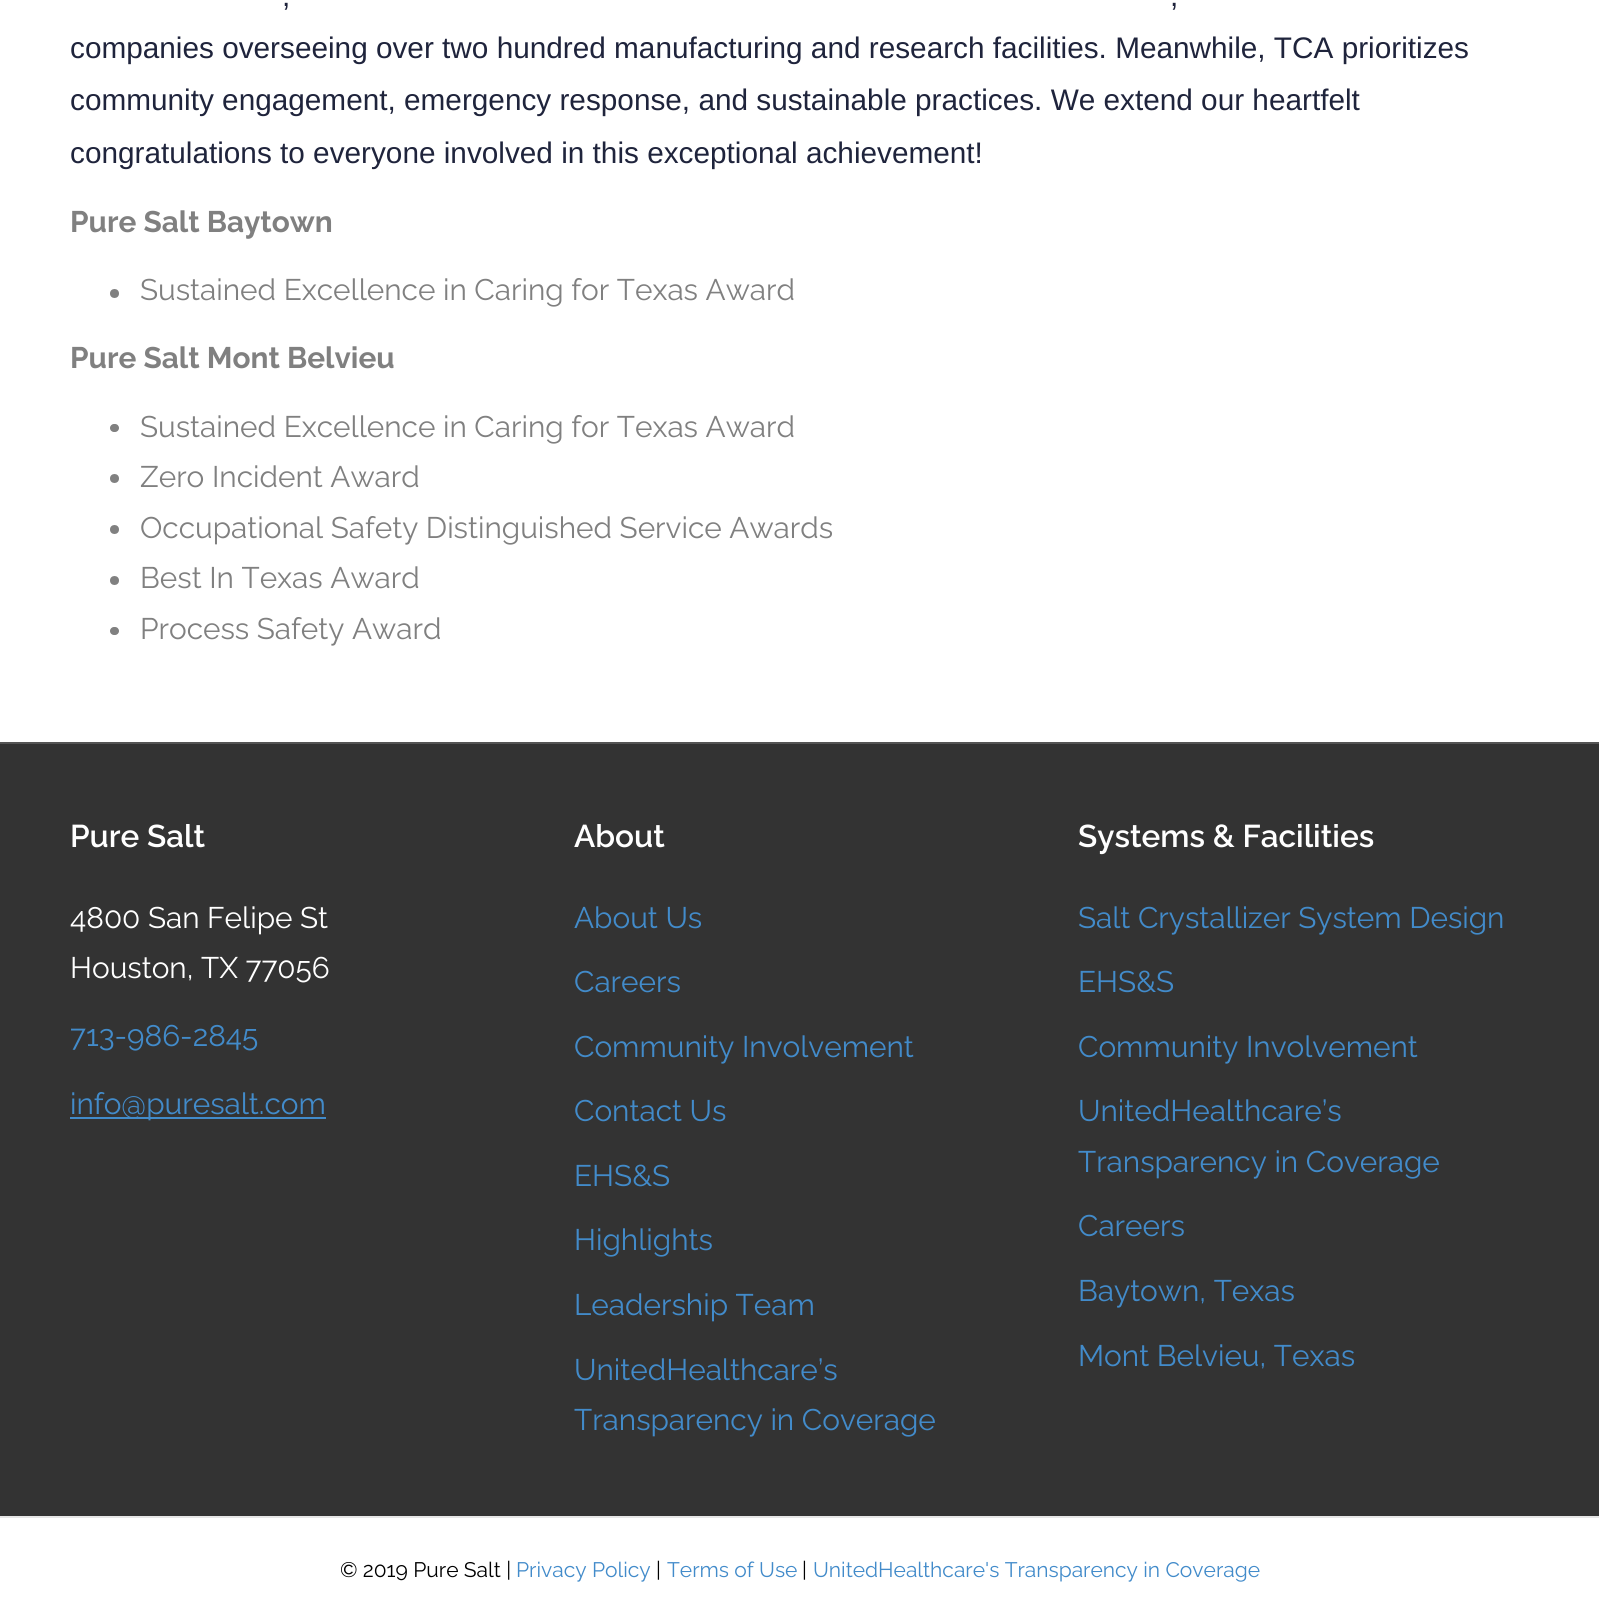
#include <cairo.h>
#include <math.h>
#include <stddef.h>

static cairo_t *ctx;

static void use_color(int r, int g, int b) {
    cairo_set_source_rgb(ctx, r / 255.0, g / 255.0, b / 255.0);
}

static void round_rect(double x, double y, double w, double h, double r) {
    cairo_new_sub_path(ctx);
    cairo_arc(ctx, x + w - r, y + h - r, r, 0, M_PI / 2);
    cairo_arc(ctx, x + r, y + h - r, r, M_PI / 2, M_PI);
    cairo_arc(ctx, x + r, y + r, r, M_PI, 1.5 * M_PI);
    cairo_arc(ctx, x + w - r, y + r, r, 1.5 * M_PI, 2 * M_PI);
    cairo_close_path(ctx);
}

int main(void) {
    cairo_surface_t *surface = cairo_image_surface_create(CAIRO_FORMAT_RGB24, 1599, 1621);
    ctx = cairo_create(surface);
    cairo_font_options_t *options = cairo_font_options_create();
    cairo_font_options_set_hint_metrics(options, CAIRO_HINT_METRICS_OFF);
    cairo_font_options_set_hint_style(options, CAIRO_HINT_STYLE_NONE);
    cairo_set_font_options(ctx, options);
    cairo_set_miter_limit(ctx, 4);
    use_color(255, 255, 255);
    cairo_paint(ctx);
    cairo_select_font_face(ctx, "Liberation Sans", CAIRO_FONT_SLANT_NORMAL, CAIRO_FONT_WEIGHT_NORMAL);
    cairo_set_font_size(ctx, 29.75);
    use_color(31, 36, 60);
    cairo_move_to(ctx, 282, 6);
    cairo_show_text(ctx, ",");
    cairo_move_to(ctx, 1170, 6);
    cairo_show_text(ctx, ",");
    cairo_move_to(ctx, 70, 58);
    cairo_show_text(ctx, "companies overseeing over two hundred manufacturing and research facilities. Meanwhile, TCA prioritizes");
    cairo_move_to(ctx, 70, 110);
    cairo_show_text(ctx, "community engagement, emergency response, and sustainable practices. We extend our heartfelt");
    cairo_move_to(ctx, 70, 163);
    cairo_show_text(ctx, "congratulations to everyone involved in this exceptional achievement!");
    cairo_select_font_face(ctx, "Raleway", CAIRO_FONT_SLANT_NORMAL, CAIRO_FONT_WEIGHT_BOLD);
    use_color(128, 128, 128);
    cairo_move_to(ctx, 70, 232);
    cairo_show_text(ctx, "Pure Salt Baytown");
    cairo_new_path(ctx);
    cairo_arc(ctx, 114.5, 293.5, 4.5, 0, 2 * M_PI);
    cairo_fill(ctx);
    cairo_select_font_face(ctx, "Raleway", CAIRO_FONT_SLANT_NORMAL, CAIRO_FONT_WEIGHT_NORMAL);
    cairo_move_to(ctx, 140, 300);
    cairo_show_text(ctx, "Sustained Excellence in Caring for Texas Award");
    cairo_select_font_face(ctx, "Raleway", CAIRO_FONT_SLANT_NORMAL, CAIRO_FONT_WEIGHT_BOLD);
    cairo_move_to(ctx, 70, 368);
    cairo_show_text(ctx, "Pure Salt Mont Belvieu");
    round_rect(110, 424, 9, 8, 4);
    cairo_fill(ctx);
    cairo_select_font_face(ctx, "Raleway", CAIRO_FONT_SLANT_NORMAL, CAIRO_FONT_WEIGHT_NORMAL);
    cairo_move_to(ctx, 140, 437);
    cairo_show_text(ctx, "Sustained Excellence in Caring for Texas Award");
    cairo_new_path(ctx);
    cairo_arc(ctx, 114.5, 478.5, 4.5, 0, 2 * M_PI);
    cairo_fill(ctx);
    cairo_move_to(ctx, 140, 487);
    cairo_show_text(ctx, "Zero Incident Award");
    cairo_new_path(ctx);
    cairo_arc(ctx, 114.5, 529.5, 4.5, 0, 2 * M_PI);
    cairo_fill(ctx);
    cairo_move_to(ctx, 140, 538);
    cairo_show_text(ctx, "Occupational Safety Distinguished Service Awards");
    cairo_new_path(ctx);
    cairo_arc(ctx, 114.5, 580.5, 4.5, 0, 2 * M_PI);
    cairo_fill(ctx);
    cairo_move_to(ctx, 140, 588);
    cairo_show_text(ctx, "Best In Texas Award");
    round_rect(110, 627, 9, 8, 4);
    cairo_fill(ctx);
    cairo_move_to(ctx, 140, 639);
    cairo_show_text(ctx, "Process Safety Award");
    use_color(51, 51, 51);
    cairo_rectangle(ctx, 0, 744, 1599, 772);
    cairo_fill(ctx);
    use_color(84, 84, 84);
    cairo_rectangle(ctx, 0, 742, 1599, 2);
    cairo_fill(ctx);
    cairo_select_font_face(ctx, "Raleway SemiBold", CAIRO_FONT_SLANT_NORMAL, CAIRO_FONT_WEIGHT_NORMAL);
    cairo_set_font_size(ctx, 31.5);
    use_color(255, 255, 255);
    cairo_move_to(ctx, 70, 847);
    cairo_show_text(ctx, "Pure Salt");
    cairo_select_font_face(ctx, "Raleway", CAIRO_FONT_SLANT_NORMAL, CAIRO_FONT_WEIGHT_NORMAL);
    cairo_set_font_size(ctx, 29.75);
    cairo_move_to(ctx, 70, 928);
    cairo_show_text(ctx, "4800 San Felipe St");
    cairo_move_to(ctx, 70, 978);
    cairo_show_text(ctx, "Houston, TX 77056");
    use_color(66, 139, 202);
    cairo_move_to(ctx, 70, 1046);
    cairo_show_text(ctx, "713-986-2845");
    cairo_rectangle(ctx, 70, 1117, 256, 2);
    cairo_fill(ctx);
    cairo_move_to(ctx, 70, 1114);
    cairo_show_text(ctx, "info@puresalt.com");
    cairo_select_font_face(ctx, "Raleway SemiBold", CAIRO_FONT_SLANT_NORMAL, CAIRO_FONT_WEIGHT_NORMAL);
    cairo_set_font_size(ctx, 31.5);
    use_color(255, 255, 255);
    cairo_move_to(ctx, 574, 847);
    cairo_show_text(ctx, "About");
    cairo_select_font_face(ctx, "Raleway", CAIRO_FONT_SLANT_NORMAL, CAIRO_FONT_WEIGHT_NORMAL);
    cairo_set_font_size(ctx, 29.75);
    use_color(66, 139, 202);
    cairo_move_to(ctx, 574, 928);
    cairo_show_text(ctx, "About Us");
    cairo_move_to(ctx, 574, 992);
    cairo_show_text(ctx, "Careers");
    cairo_move_to(ctx, 574, 1057);
    cairo_show_text(ctx, "Community Involvement");
    cairo_move_to(ctx, 574, 1121);
    cairo_show_text(ctx, "Contact Us");
    cairo_move_to(ctx, 574, 1186);
    cairo_show_text(ctx, "EHS&S");
    cairo_move_to(ctx, 574, 1250);
    cairo_show_text(ctx, "Highlights");
    cairo_move_to(ctx, 574, 1315);
    cairo_show_text(ctx, "Leadership Team");
    cairo_move_to(ctx, 574, 1380);
    cairo_show_text(ctx, "UnitedHealthcare’s");
    cairo_move_to(ctx, 574, 1430);
    cairo_show_text(ctx, "Transparency in Coverage");
    cairo_select_font_face(ctx, "Raleway SemiBold", CAIRO_FONT_SLANT_NORMAL, CAIRO_FONT_WEIGHT_NORMAL);
    cairo_set_font_size(ctx, 31.5);
    use_color(255, 255, 255);
    cairo_move_to(ctx, 1078, 847);
    cairo_show_text(ctx, "Systems & Facilities");
    cairo_select_font_face(ctx, "Raleway", CAIRO_FONT_SLANT_NORMAL, CAIRO_FONT_WEIGHT_NORMAL);
    cairo_set_font_size(ctx, 29.75);
    use_color(66, 139, 202);
    cairo_move_to(ctx, 1078, 928);
    cairo_show_text(ctx, "Salt Crystallizer System Design");
    cairo_move_to(ctx, 1078, 992);
    cairo_show_text(ctx, "EHS&S");
    cairo_move_to(ctx, 1078, 1057);
    cairo_show_text(ctx, "Community Involvement");
    cairo_move_to(ctx, 1078, 1121);
    cairo_show_text(ctx, "UnitedHealthcare’s");
    cairo_move_to(ctx, 1078, 1172);
    cairo_show_text(ctx, "Transparency in Coverage");
    cairo_move_to(ctx, 1078, 1236);
    cairo_show_text(ctx, "Careers");
    cairo_move_to(ctx, 1078, 1301);
    cairo_show_text(ctx, "Baytown, Texas");
    cairo_move_to(ctx, 1078, 1366);
    cairo_show_text(ctx, "Mont Belvieu, Texas");
    use_color(230, 230, 230);
    cairo_rectangle(ctx, 0, 1516, 1599, 2);
    cairo_fill(ctx);
    cairo_set_font_size(ctx, 21);
    use_color(0, 0, 0);
    cairo_move_to(ctx, 340, 1577);
    cairo_show_text(ctx, "© 2019 Pure Salt |");
    use_color(66, 139, 202);
    cairo_move_to(ctx, 516, 1577);
    cairo_show_text(ctx, "Privacy Policy");
    use_color(0, 0, 0);
    cairo_move_to(ctx, 656, 1577);
    cairo_show_text(ctx, "|");
    use_color(66, 139, 202);
    cairo_move_to(ctx, 667, 1577);
    cairo_show_text(ctx, "Terms of Use");
    use_color(0, 0, 0);
    cairo_move_to(ctx, 802, 1577);
    cairo_show_text(ctx, "|");
    use_color(66, 139, 202);
    cairo_move_to(ctx, 813, 1577);
    cairo_show_text(ctx, "UnitedHealthcare's Transparency in Coverage");
    cairo_surface_write_to_png(surface, "result.png");
    cairo_font_options_destroy(options);
    cairo_destroy(ctx);
    cairo_surface_destroy(surface);
    return 0;
}
